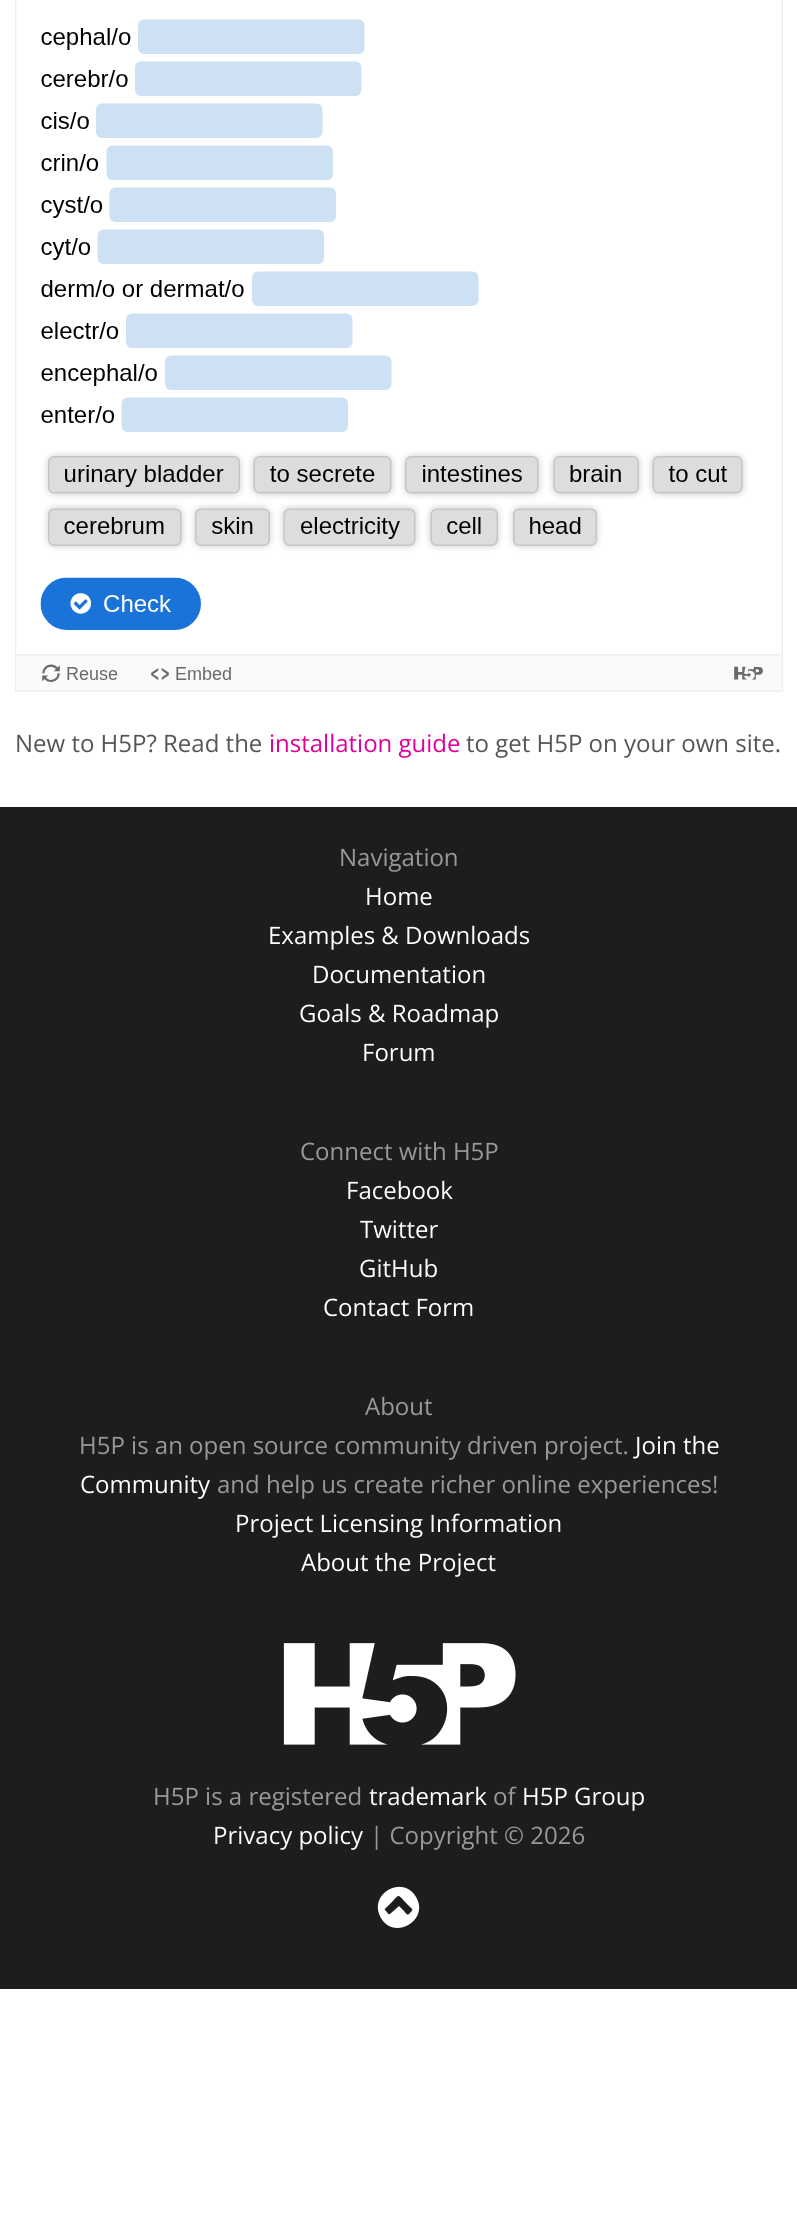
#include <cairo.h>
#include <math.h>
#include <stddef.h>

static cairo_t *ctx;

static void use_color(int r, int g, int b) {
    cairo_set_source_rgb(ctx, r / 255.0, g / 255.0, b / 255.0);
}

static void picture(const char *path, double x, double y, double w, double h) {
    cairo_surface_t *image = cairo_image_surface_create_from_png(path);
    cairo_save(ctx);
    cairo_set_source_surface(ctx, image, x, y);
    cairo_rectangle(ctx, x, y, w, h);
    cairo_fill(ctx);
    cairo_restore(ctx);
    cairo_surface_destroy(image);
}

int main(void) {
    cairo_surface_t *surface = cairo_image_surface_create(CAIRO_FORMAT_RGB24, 797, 2239);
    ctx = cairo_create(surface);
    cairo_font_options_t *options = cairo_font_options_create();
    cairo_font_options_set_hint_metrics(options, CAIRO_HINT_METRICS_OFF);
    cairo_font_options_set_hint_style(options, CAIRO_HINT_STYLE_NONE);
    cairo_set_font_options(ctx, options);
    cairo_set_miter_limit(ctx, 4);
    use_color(255, 255, 255);
    cairo_paint(ctx);
    picture("img1.png", 15, 0, 768, 692);
    cairo_select_font_face(ctx, "Open Sans", CAIRO_FONT_SLANT_NORMAL, CAIRO_FONT_WEIGHT_NORMAL);
    cairo_set_font_size(ctx, 24);
    use_color(85, 85, 85);
    cairo_move_to(ctx, 15, 752);
    cairo_show_text(ctx, "New to H5P? Read the");
    use_color(221, 0, 153);
    cairo_move_to(ctx, 269, 752);
    cairo_show_text(ctx, "installation guide");
    use_color(85, 85, 85);
    cairo_move_to(ctx, 466, 752);
    cairo_show_text(ctx, "to get H5P on your own site.");
    use_color(29, 29, 29);
    cairo_rectangle(ctx, 0, 807, 797, 1182);
    cairo_fill(ctx);
    use_color(153, 153, 153);
    cairo_move_to(ctx, 339, 866);
    cairo_show_text(ctx, "Navigation");
    use_color(255, 255, 255);
    cairo_move_to(ctx, 365, 905);
    cairo_show_text(ctx, "Home");
    cairo_move_to(ctx, 268, 944);
    cairo_show_text(ctx, "Examples & Downloads");
    cairo_move_to(ctx, 312, 983);
    cairo_show_text(ctx, "Documentation");
    cairo_move_to(ctx, 299, 1022);
    cairo_show_text(ctx, "Goals & Roadmap");
    cairo_move_to(ctx, 362, 1061);
    cairo_show_text(ctx, "Forum");
    use_color(153, 153, 153);
    cairo_move_to(ctx, 300, 1160);
    cairo_show_text(ctx, "Connect with H5P");
    use_color(255, 255, 255);
    cairo_move_to(ctx, 346, 1199);
    cairo_show_text(ctx, "Facebook");
    cairo_move_to(ctx, 360, 1238);
    cairo_show_text(ctx, "Twitter");
    cairo_move_to(ctx, 359, 1277);
    cairo_show_text(ctx, "GitHub");
    cairo_move_to(ctx, 323, 1316);
    cairo_show_text(ctx, "Contact Form");
    use_color(153, 153, 153);
    cairo_move_to(ctx, 365, 1415);
    cairo_show_text(ctx, "About");
    cairo_move_to(ctx, 79, 1454);
    cairo_show_text(ctx, "H5P is an open source community driven project.");
    use_color(255, 255, 255);
    cairo_move_to(ctx, 635, 1454);
    cairo_show_text(ctx, "Join the");
    cairo_move_to(ctx, 80, 1493);
    cairo_show_text(ctx, "Community");
    use_color(153, 153, 153);
    cairo_move_to(ctx, 217, 1493);
    cairo_show_text(ctx, "and help us create richer online experiences!");
    use_color(255, 255, 255);
    cairo_move_to(ctx, 235, 1532);
    cairo_show_text(ctx, "Project Licensing Information");
    cairo_move_to(ctx, 301, 1571);
    cairo_show_text(ctx, "About the Project");
    picture("img2.png", 283, 1643, 233, 102);
    use_color(153, 153, 153);
    cairo_move_to(ctx, 153, 1805);
    cairo_show_text(ctx, "H5P is a registered");
    use_color(255, 255, 255);
    cairo_move_to(ctx, 369, 1805);
    cairo_show_text(ctx, "trademark");
    use_color(153, 153, 153);
    cairo_move_to(ctx, 493, 1805);
    cairo_show_text(ctx, "of");
    use_color(255, 255, 255);
    cairo_move_to(ctx, 522, 1805);
    cairo_show_text(ctx, "H5P Group");
    cairo_move_to(ctx, 213, 1844);
    cairo_show_text(ctx, "Privacy policy");
    use_color(153, 153, 153);
    cairo_move_to(ctx, 370, 1844);
    cairo_show_text(ctx, "| Copyright © 2026");
    use_color(255, 255, 255);
    cairo_new_path(ctx);
    cairo_move_to(ctx, 409, 1914);
    cairo_curve_to(ctx, 414, 1909, 413, 1910, 408, 1905);
    cairo_curve_to(ctx, 396, 1893, 401, 1893, 389, 1905);
    cairo_curve_to(ctx, 385, 1909, 383, 1909, 387, 1912);
    cairo_curve_to(ctx, 387, 1913, 389, 1915, 390, 1914);
    cairo_line_to(ctx, 399, 1906);
    cairo_line_to(ctx, 404, 1911);
    cairo_curve_to(ctx, 405, 1912, 407, 1916, 409, 1914);
    cairo_close_path(ctx);
    cairo_move_to(ctx, 416, 1897);
    cairo_curve_to(ctx, 430, 1920, 394, 1941, 381, 1918);
    cairo_curve_to(ctx, 367, 1894, 403, 1874, 416, 1897);
    cairo_close_path(ctx);
    cairo_fill(ctx);
    cairo_surface_write_to_png(surface, "result.png");
    cairo_font_options_destroy(options);
    cairo_destroy(ctx);
    cairo_surface_destroy(surface);
    return 0;
}
